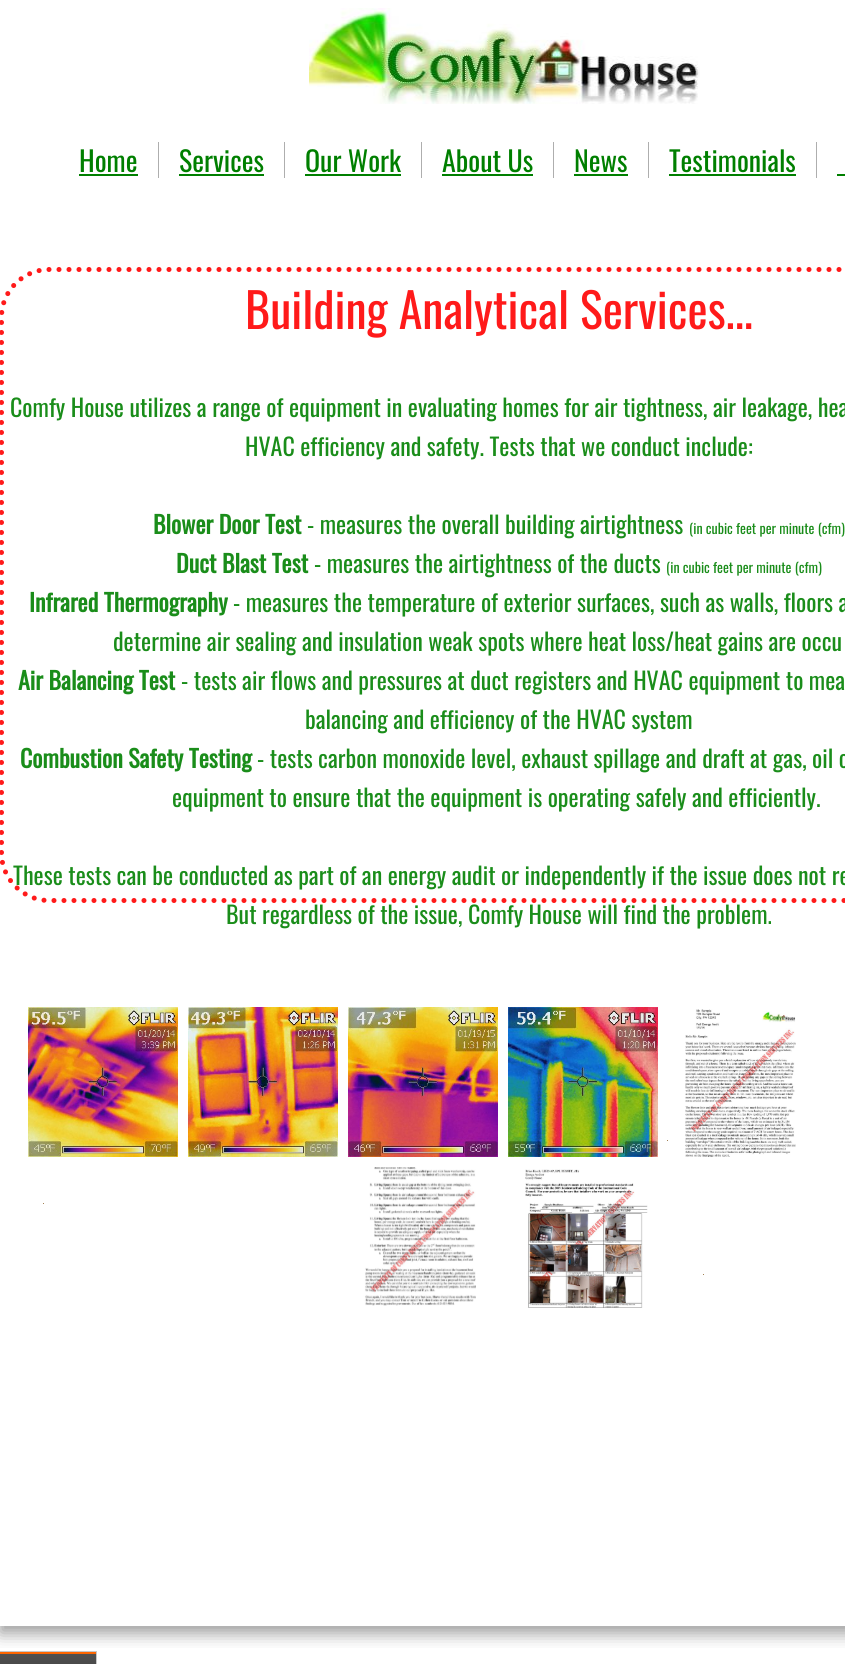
#include <cairo.h>
#include <math.h>
#include <stddef.h>

static cairo_t *ctx;

static void use_color(int r, int g, int b) {
    cairo_set_source_rgb(ctx, r / 255.0, g / 255.0, b / 255.0);
}

static void round_rect(double x, double y, double w, double h, double r) {
    cairo_new_sub_path(ctx);
    cairo_arc(ctx, x + w - r, y + h - r, r, 0, M_PI / 2);
    cairo_arc(ctx, x + r, y + h - r, r, M_PI / 2, M_PI);
    cairo_arc(ctx, x + r, y + r, r, M_PI, 1.5 * M_PI);
    cairo_arc(ctx, x + w - r, y + r, r, 1.5 * M_PI, 2 * M_PI);
    cairo_close_path(ctx);
}

static void shadow(double x, double y, double w, double h, double r, double blur, double alpha) {
    cairo_push_group_with_content(ctx, CAIRO_CONTENT_ALPHA);
    cairo_set_operator(ctx, CAIRO_OPERATOR_SOURCE);
    for (int i = 15; i >= -15 && fmin(w, h) + blur * i / 3 > 0; i -= 2) {
        double e = blur * i / 6;
        cairo_set_source_rgba(ctx, 0, 0, 0, alpha * erfc((i - 1) / 8.5) / 2);
        round_rect(x - e, y - e, w + 2 * e, h + 2 * e, fmax(0, fmin(r + e + blur * .6, fmin(w, h) / 2 + e)));
        cairo_fill(ctx);
    }
    cairo_pattern_t *soft = cairo_pop_group(ctx);
    cairo_mask(ctx, soft);
    cairo_pattern_destroy(soft);
}

static void picture(const char *path, double x, double y, double w, double h) {
    cairo_surface_t *image = cairo_image_surface_create_from_png(path);
    cairo_save(ctx);
    cairo_set_source_surface(ctx, image, x, y);
    cairo_rectangle(ctx, x, y, w, h);
    cairo_fill(ctx);
    cairo_restore(ctx);
    cairo_surface_destroy(image);
}

int main(void) {
    cairo_surface_t *surface = cairo_image_surface_create(CAIRO_FORMAT_RGB24, 845, 1664);
    ctx = cairo_create(surface);
    cairo_font_options_t *options = cairo_font_options_create();
    cairo_font_options_set_hint_metrics(options, CAIRO_HINT_METRICS_OFF);
    cairo_font_options_set_hint_style(options, CAIRO_HINT_STYLE_NONE);
    cairo_set_font_options(ctx, options);
    cairo_set_miter_limit(ctx, 4);
    use_color(255, 255, 255);
    cairo_paint(ctx);
    cairo_save(ctx);
    cairo_rectangle(ctx, 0, 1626, 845, 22);
    cairo_clip(ctx);
    use_color(50, 50, 50);
    shadow(0, 7, 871, 1626, 0, 8.5, 0.5);
    cairo_restore(ctx);
    picture("img1.png", 309, 8, 391, 96);
    use_color(174, 174, 174);
    cairo_rectangle(ctx, 158, 142, 1, 36);
    cairo_fill(ctx);
    cairo_select_font_face(ctx, "Oswald", CAIRO_FONT_SLANT_NORMAL, CAIRO_FONT_WEIGHT_NORMAL);
    cairo_set_font_size(ctx, 28);
    use_color(0, 127, 0);
    cairo_move_to(ctx, 79, 172);
    cairo_show_text(ctx, "Home");
    cairo_rectangle(ctx, 79, 174, 59, 2);
    cairo_fill(ctx);
    use_color(174, 174, 174);
    cairo_rectangle(ctx, 284, 142, 1, 36);
    cairo_fill(ctx);
    use_color(0, 127, 0);
    cairo_move_to(ctx, 179, 172);
    cairo_show_text(ctx, "Services");
    cairo_rectangle(ctx, 179, 174, 85, 2);
    cairo_fill(ctx);
    use_color(174, 174, 174);
    cairo_rectangle(ctx, 421, 142, 1, 36);
    cairo_fill(ctx);
    use_color(0, 127, 0);
    cairo_move_to(ctx, 305, 172);
    cairo_show_text(ctx, "Our Work");
    cairo_rectangle(ctx, 305, 174, 96, 2);
    cairo_fill(ctx);
    use_color(174, 174, 174);
    cairo_rectangle(ctx, 553, 142, 1, 36);
    cairo_fill(ctx);
    use_color(0, 127, 0);
    cairo_move_to(ctx, 442, 172);
    cairo_show_text(ctx, "About Us");
    cairo_rectangle(ctx, 442, 174, 91, 2);
    cairo_fill(ctx);
    use_color(174, 174, 174);
    cairo_rectangle(ctx, 648, 142, 1, 36);
    cairo_fill(ctx);
    use_color(0, 127, 0);
    cairo_move_to(ctx, 574, 172);
    cairo_show_text(ctx, "News");
    cairo_rectangle(ctx, 574, 174, 54, 2);
    cairo_fill(ctx);
    use_color(174, 174, 174);
    cairo_rectangle(ctx, 816, 142, 1, 36);
    cairo_fill(ctx);
    use_color(0, 127, 0);
    cairo_move_to(ctx, 669, 172);
    cairo_show_text(ctx, "Testimonials");
    cairo_rectangle(ctx, 669, 174, 127, 2);
    cairo_fill(ctx);
    cairo_rectangle(ctx, 837, 174, 8, 2);
    cairo_fill(ctx);
    cairo_new_path(ctx);
    cairo_move_to(ctx, 49, 269.5);
    cairo_line_to(ctx, 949, 269.5);
    cairo_curve_to(ctx, 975, 269.5, 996.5, 291, 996.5, 317);
    cairo_line_to(ctx, 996.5, 853);
    cairo_curve_to(ctx, 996.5, 879, 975, 900.5, 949, 900.5);
    cairo_line_to(ctx, 49, 900.5);
    cairo_curve_to(ctx, 23, 900.5, 1.5, 879, 1.5, 853);
    cairo_line_to(ctx, 1.5, 317);
    cairo_curve_to(ctx, 1.5, 291, 23, 269.5, 49, 269.5);
    cairo_close_path(ctx);
    use_color(255, 26, 26);
    cairo_set_line_width(ctx, 5);
    cairo_set_line_cap(ctx, CAIRO_LINE_CAP_ROUND);
    cairo_set_dash(ctx, (double[]){0, 10}, 2, 0);
    cairo_stroke(ctx);
    cairo_set_font_size(ctx, 48);
    cairo_move_to(ctx, 245, 329);
    cairo_show_text(ctx, "Building Analytical Services...");
    cairo_set_font_size(ctx, 24);
    use_color(26, 141, 26);
    cairo_move_to(ctx, 10, 417);
    cairo_show_text(ctx, "Comfy House utilizes a range of equipment in evaluating homes for air tightness, air leakage, hea");
    cairo_move_to(ctx, 245, 456);
    cairo_show_text(ctx, "HVAC efficiency and safety. Tests that we conduct include:");
    cairo_select_font_face(ctx, "Oswald", CAIRO_FONT_SLANT_NORMAL, CAIRO_FONT_WEIGHT_BOLD);
    cairo_move_to(ctx, 153, 534);
    cairo_show_text(ctx, "Blower Door Test");
    cairo_select_font_face(ctx, "Oswald", CAIRO_FONT_SLANT_NORMAL, CAIRO_FONT_WEIGHT_NORMAL);
    cairo_move_to(ctx, 307, 534);
    cairo_show_text(ctx, "- measures the overall building airtightness");
    cairo_set_font_size(ctx, 14);
    cairo_move_to(ctx, 689, 534);
    cairo_show_text(ctx, "(in cubic feet per minute (cfm)");
    cairo_select_font_face(ctx, "Oswald", CAIRO_FONT_SLANT_NORMAL, CAIRO_FONT_WEIGHT_BOLD);
    cairo_set_font_size(ctx, 24);
    cairo_move_to(ctx, 176, 573);
    cairo_show_text(ctx, "Duct Blast Test");
    cairo_select_font_face(ctx, "Oswald", CAIRO_FONT_SLANT_NORMAL, CAIRO_FONT_WEIGHT_NORMAL);
    cairo_move_to(ctx, 314, 573);
    cairo_show_text(ctx, "- measures the airtightness of the ducts");
    cairo_set_font_size(ctx, 14);
    cairo_move_to(ctx, 666, 573);
    cairo_show_text(ctx, "(in cubic feet per minute (cfm)");
    cairo_select_font_face(ctx, "Oswald", CAIRO_FONT_SLANT_NORMAL, CAIRO_FONT_WEIGHT_BOLD);
    cairo_set_font_size(ctx, 24);
    cairo_move_to(ctx, 29, 612);
    cairo_show_text(ctx, "Infrared Thermography");
    cairo_select_font_face(ctx, "Oswald", CAIRO_FONT_SLANT_NORMAL, CAIRO_FONT_WEIGHT_NORMAL);
    cairo_move_to(ctx, 233, 612);
    cairo_show_text(ctx, "- measures the temperature of exterior surfaces, such as walls, floors a");
    cairo_move_to(ctx, 113, 651);
    cairo_show_text(ctx, "determine air sealing and insulation weak spots where heat loss/heat gains are occu");
    cairo_select_font_face(ctx, "Oswald", CAIRO_FONT_SLANT_NORMAL, CAIRO_FONT_WEIGHT_BOLD);
    cairo_move_to(ctx, 18, 690);
    cairo_show_text(ctx, "Air Balancing Test");
    cairo_select_font_face(ctx, "Oswald", CAIRO_FONT_SLANT_NORMAL, CAIRO_FONT_WEIGHT_NORMAL);
    cairo_move_to(ctx, 181, 690);
    cairo_show_text(ctx, "- tests air flows and pressures at duct registers and HVAC equipment to mea");
    cairo_move_to(ctx, 305, 729);
    cairo_show_text(ctx, "balancing and efficiency of the HVAC system");
    cairo_select_font_face(ctx, "Oswald", CAIRO_FONT_SLANT_NORMAL, CAIRO_FONT_WEIGHT_BOLD);
    cairo_move_to(ctx, 20, 768);
    cairo_show_text(ctx, "Combustion Safety Testing");
    cairo_select_font_face(ctx, "Oswald", CAIRO_FONT_SLANT_NORMAL, CAIRO_FONT_WEIGHT_NORMAL);
    cairo_move_to(ctx, 257, 768);
    cairo_show_text(ctx, "- tests carbon monoxide level, exhaust spillage and draft at gas, oil o");
    cairo_move_to(ctx, 172, 807);
    cairo_show_text(ctx, "equipment to ensure that the equipment is operating safely and efficiently.");
    cairo_move_to(ctx, 13, 885);
    cairo_show_text(ctx, "These tests can be conducted as part of an energy audit or independently if the issue does not re");
    cairo_move_to(ctx, 226, 924);
    cairo_show_text(ctx, "But regardless of the issue, Comfy House will find the problem.");
    picture("img2.png", 28, 1007, 150, 150);
    picture("img3.png", 188, 1007, 150, 150);
    picture("img4.png", 348, 1007, 150, 150);
    picture("img5.png", 508, 1007, 150, 150);
    picture("img6.png", 685, 1009, 111, 148);
    picture("img7.png", 362, 1167, 114, 139);
    picture("img8.png", 525, 1169, 123, 139);
    use_color(163, 129, 84);
    cairo_rectangle(ctx, 667, 1140, 1, 1);
    cairo_fill(ctx);
    cairo_rectangle(ctx, 43, 1203, 1, 1);
    cairo_fill(ctx);
    cairo_rectangle(ctx, 703, 1274, 1, 1);
    cairo_fill(ctx);
    picture("img9.png", 0, 1651, 97, 13);
    cairo_surface_write_to_png(surface, "result.png");
    cairo_font_options_destroy(options);
    cairo_destroy(ctx);
    cairo_surface_destroy(surface);
    return 0;
}
